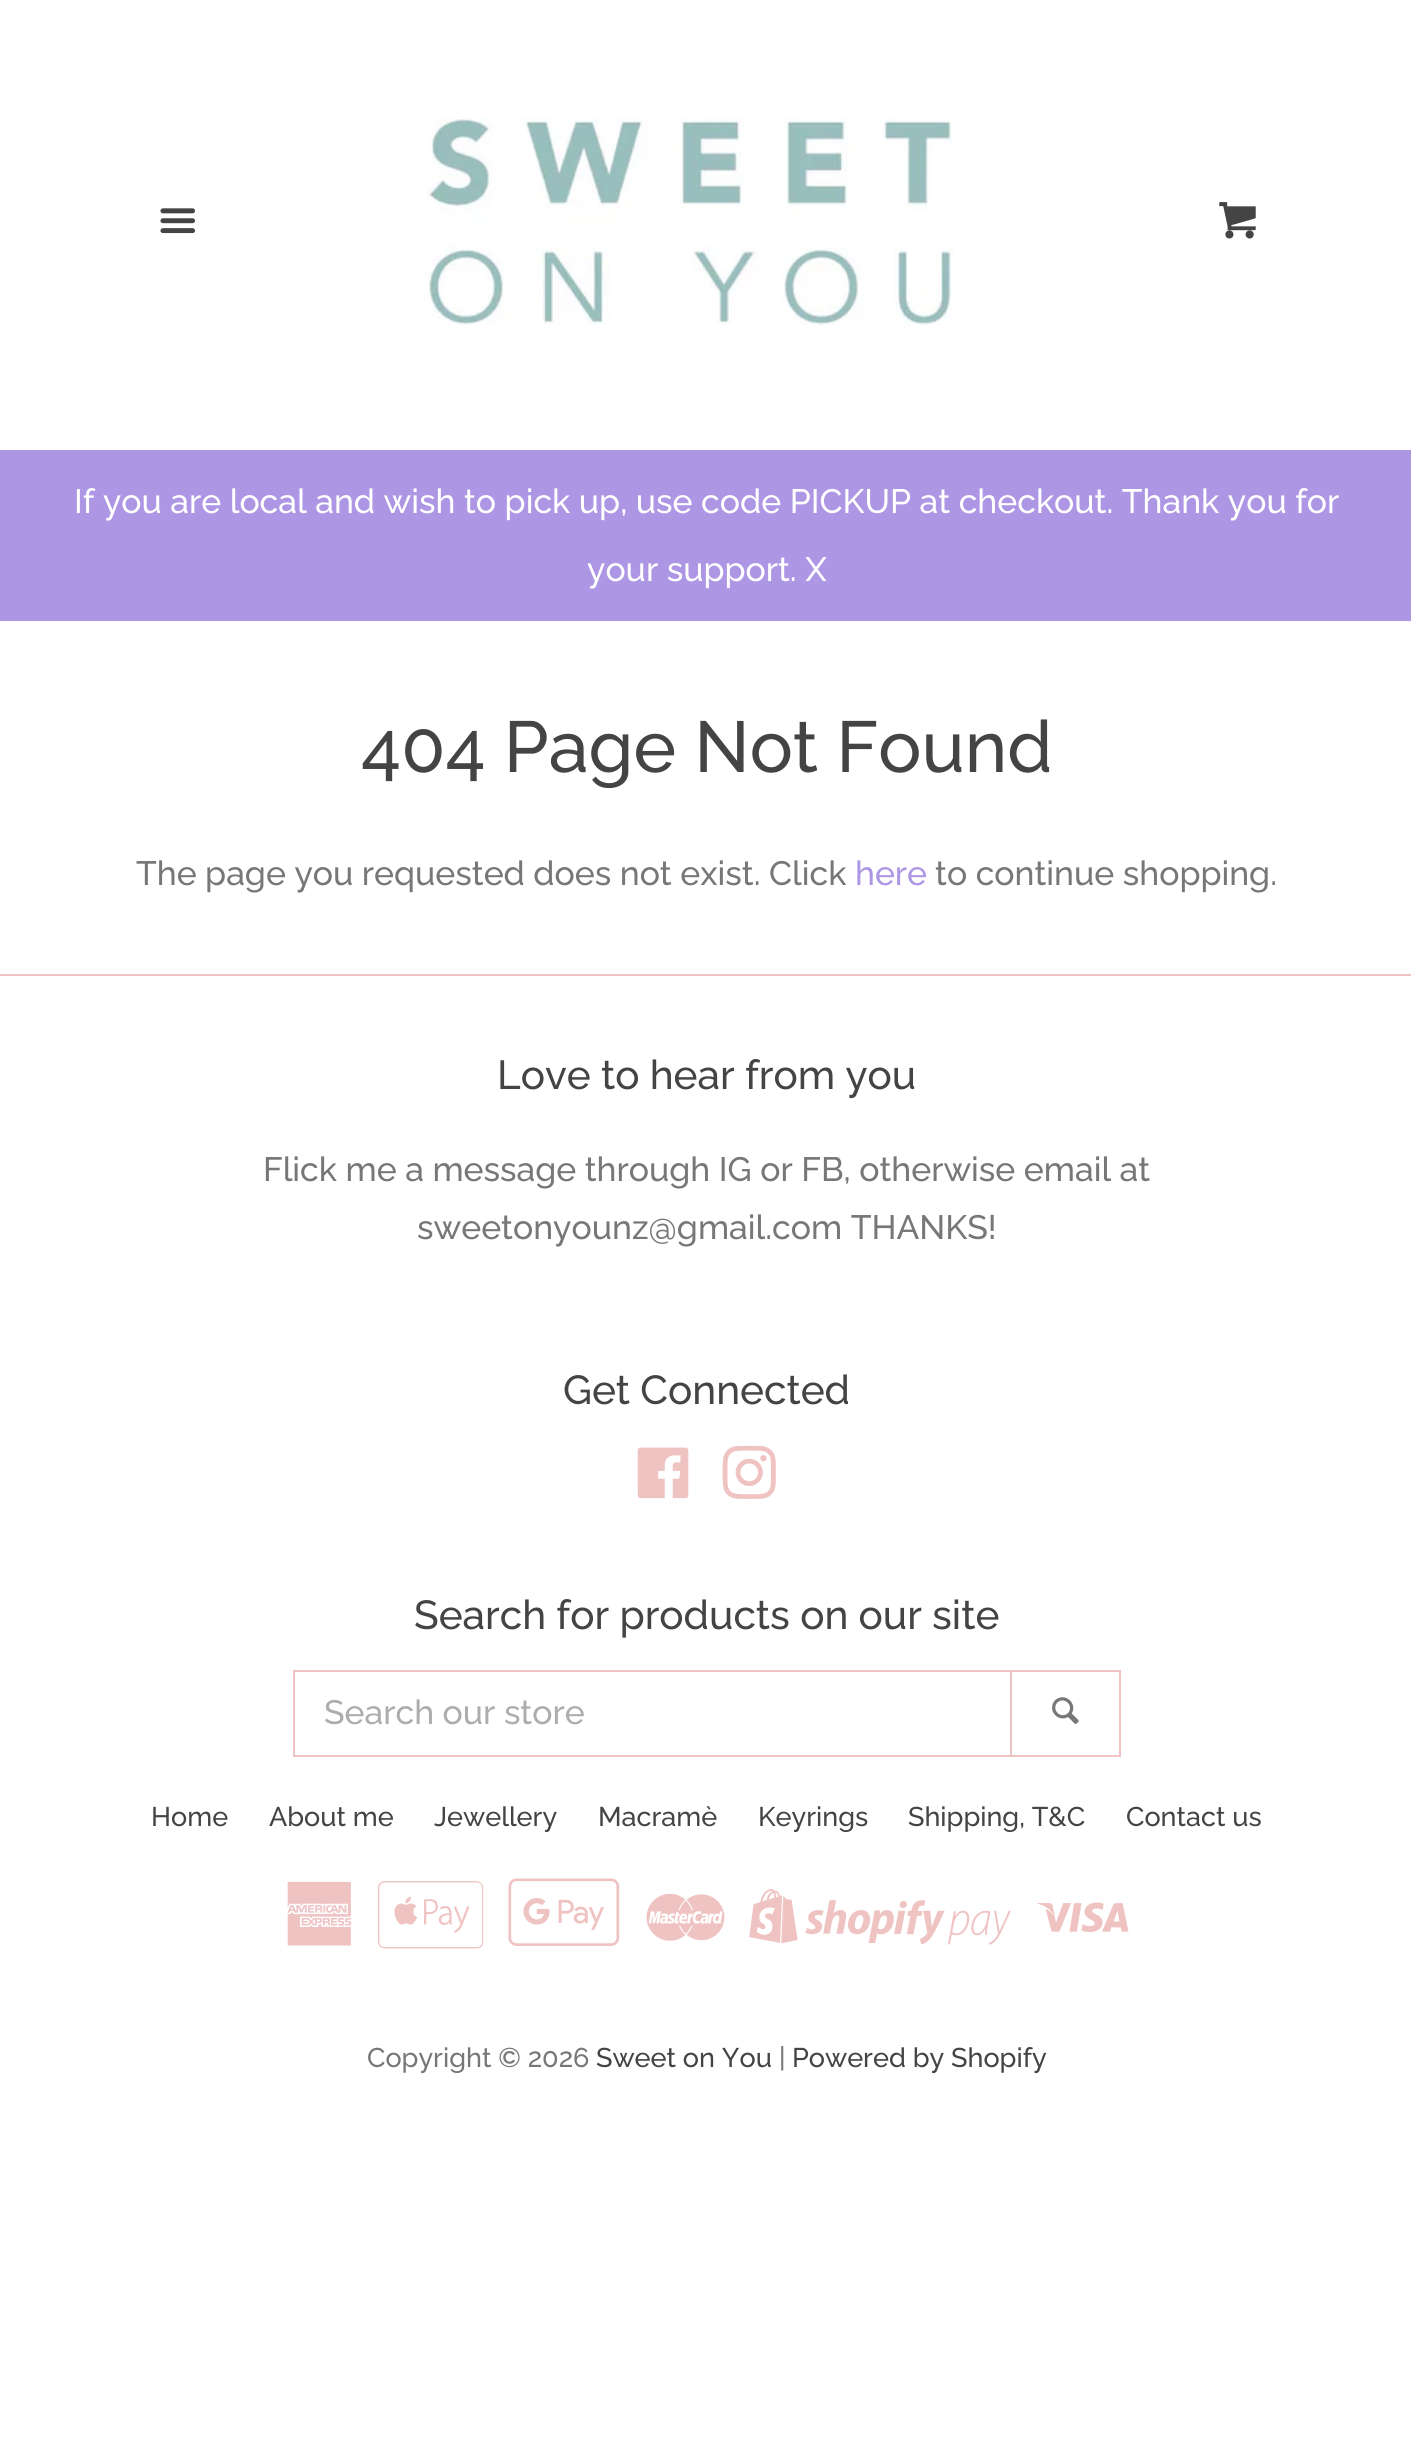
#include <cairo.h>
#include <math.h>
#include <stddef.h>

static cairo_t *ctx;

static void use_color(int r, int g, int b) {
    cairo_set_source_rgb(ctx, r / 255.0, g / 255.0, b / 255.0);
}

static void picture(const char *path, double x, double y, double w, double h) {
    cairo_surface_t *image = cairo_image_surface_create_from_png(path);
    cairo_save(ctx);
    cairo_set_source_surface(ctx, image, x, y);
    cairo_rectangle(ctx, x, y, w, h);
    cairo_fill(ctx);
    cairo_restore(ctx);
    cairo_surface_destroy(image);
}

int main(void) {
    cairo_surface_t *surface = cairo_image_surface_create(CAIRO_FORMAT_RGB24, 1411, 2464);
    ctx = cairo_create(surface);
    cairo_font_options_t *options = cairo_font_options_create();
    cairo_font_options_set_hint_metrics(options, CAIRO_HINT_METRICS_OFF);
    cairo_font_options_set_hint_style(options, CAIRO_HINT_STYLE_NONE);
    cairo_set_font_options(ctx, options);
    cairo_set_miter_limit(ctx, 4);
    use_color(255, 255, 255);
    cairo_paint(ctx);
    picture("img1.png", 160, 208, 35, 26);
    picture("img2.png", 427, 117, 527, 208);
    picture("img3.png", 1219, 202, 37, 37);
    use_color(173, 150, 228);
    cairo_rectangle(ctx, 0, 450, 1411, 171);
    cairo_fill(ctx);
    cairo_select_font_face(ctx, "Raleway Medium", CAIRO_FONT_SLANT_NORMAL, CAIRO_FONT_WEIGHT_NORMAL);
    cairo_set_font_size(ctx, 33.75);
    use_color(255, 255, 255);
    cairo_move_to(ctx, 74, 513);
    cairo_show_text(ctx, "If you are local and wish to pick up, use code PICKUP at checkout. Thank you for");
    cairo_move_to(ctx, 587, 581);
    cairo_show_text(ctx, "your support. X");
    cairo_set_font_size(ctx, 72);
    use_color(68, 68, 68);
    cairo_move_to(ctx, 361, 772);
    cairo_show_text(ctx, "404 Page Not Found");
    cairo_set_font_size(ctx, 33.75);
    use_color(119, 119, 119);
    cairo_move_to(ctx, 136, 885);
    cairo_show_text(ctx, "The page you requested does not exist. Click");
    use_color(173, 150, 228);
    cairo_move_to(ctx, 855, 885);
    cairo_show_text(ctx, "here");
    use_color(119, 119, 119);
    cairo_move_to(ctx, 935, 885);
    cairo_show_text(ctx, "to continue shopping.");
    use_color(240, 195, 195);
    cairo_rectangle(ctx, 0, 974, 1411, 2);
    cairo_fill(ctx);
    cairo_set_font_size(ctx, 40.5);
    use_color(68, 68, 68);
    cairo_move_to(ctx, 497, 1089);
    cairo_show_text(ctx, "Love to hear from you");
    cairo_set_font_size(ctx, 33.75);
    use_color(119, 119, 119);
    cairo_move_to(ctx, 263, 1181);
    cairo_show_text(ctx, "Flick me a message through IG or FB, otherwise email at");
    cairo_move_to(ctx, 417, 1239);
    cairo_show_text(ctx, "sweetonyounz@gmail.com THANKS!");
    cairo_set_font_size(ctx, 40.5);
    use_color(68, 68, 68);
    cairo_move_to(ctx, 563, 1404);
    cairo_show_text(ctx, "Get Connected");
    picture("img4.png", 637, 1447, 52, 52);
    picture("img5.png", 722, 1445, 54, 54);
    cairo_move_to(ctx, 414, 1629);
    cairo_show_text(ctx, "Search for products on our site");
    cairo_rectangle(ctx, 294, 1671, 826, 85);
    use_color(240, 195, 195);
    cairo_stroke(ctx);
    cairo_rectangle(ctx, 1010, 1672, 2, 83);
    cairo_fill(ctx);
    cairo_set_font_size(ctx, 33.75);
    use_color(173, 173, 173);
    cairo_move_to(ctx, 324, 1724);
    cairo_show_text(ctx, "Search our store");
    picture("img6.png", 1052, 1697, 27, 27);
    cairo_set_font_size(ctx, 27);
    use_color(68, 68, 68);
    cairo_move_to(ctx, 151, 1826);
    cairo_show_text(ctx, "Home");
    cairo_move_to(ctx, 269, 1826);
    cairo_show_text(ctx, "About me");
    cairo_move_to(ctx, 434, 1826);
    cairo_show_text(ctx, "Jewellery");
    cairo_move_to(ctx, 598, 1826);
    cairo_show_text(ctx, "Macramè");
    cairo_move_to(ctx, 758, 1826);
    cairo_show_text(ctx, "Keyrings");
    cairo_move_to(ctx, 908, 1826);
    cairo_show_text(ctx, "Shipping, T&C");
    cairo_move_to(ctx, 1126, 1826);
    cairo_show_text(ctx, "Contact us");
    picture("img7.png", 287, 1881, 65, 65);
    picture("img8.png", 378, 1881, 106, 68);
    picture("img9.png", 508, 1878, 112, 68);
    picture("img10.png", 646, 1893, 79, 48);
    picture("img11.png", 749, 1889, 262, 56);
    picture("img12.png", 1037, 1902, 92, 30);
    use_color(119, 119, 119);
    cairo_move_to(ctx, 367, 2067);
    cairo_show_text(ctx, "Copyright © 2026");
    use_color(68, 68, 68);
    cairo_move_to(ctx, 596, 2067);
    cairo_show_text(ctx, "Sweet on You");
    use_color(119, 119, 119);
    cairo_move_to(ctx, 779, 2067);
    cairo_show_text(ctx, "|");
    use_color(68, 68, 68);
    cairo_move_to(ctx, 792, 2067);
    cairo_show_text(ctx, "Powered by Shopify");
    cairo_surface_write_to_png(surface, "result.png");
    cairo_font_options_destroy(options);
    cairo_destroy(ctx);
    cairo_surface_destroy(surface);
    return 0;
}
